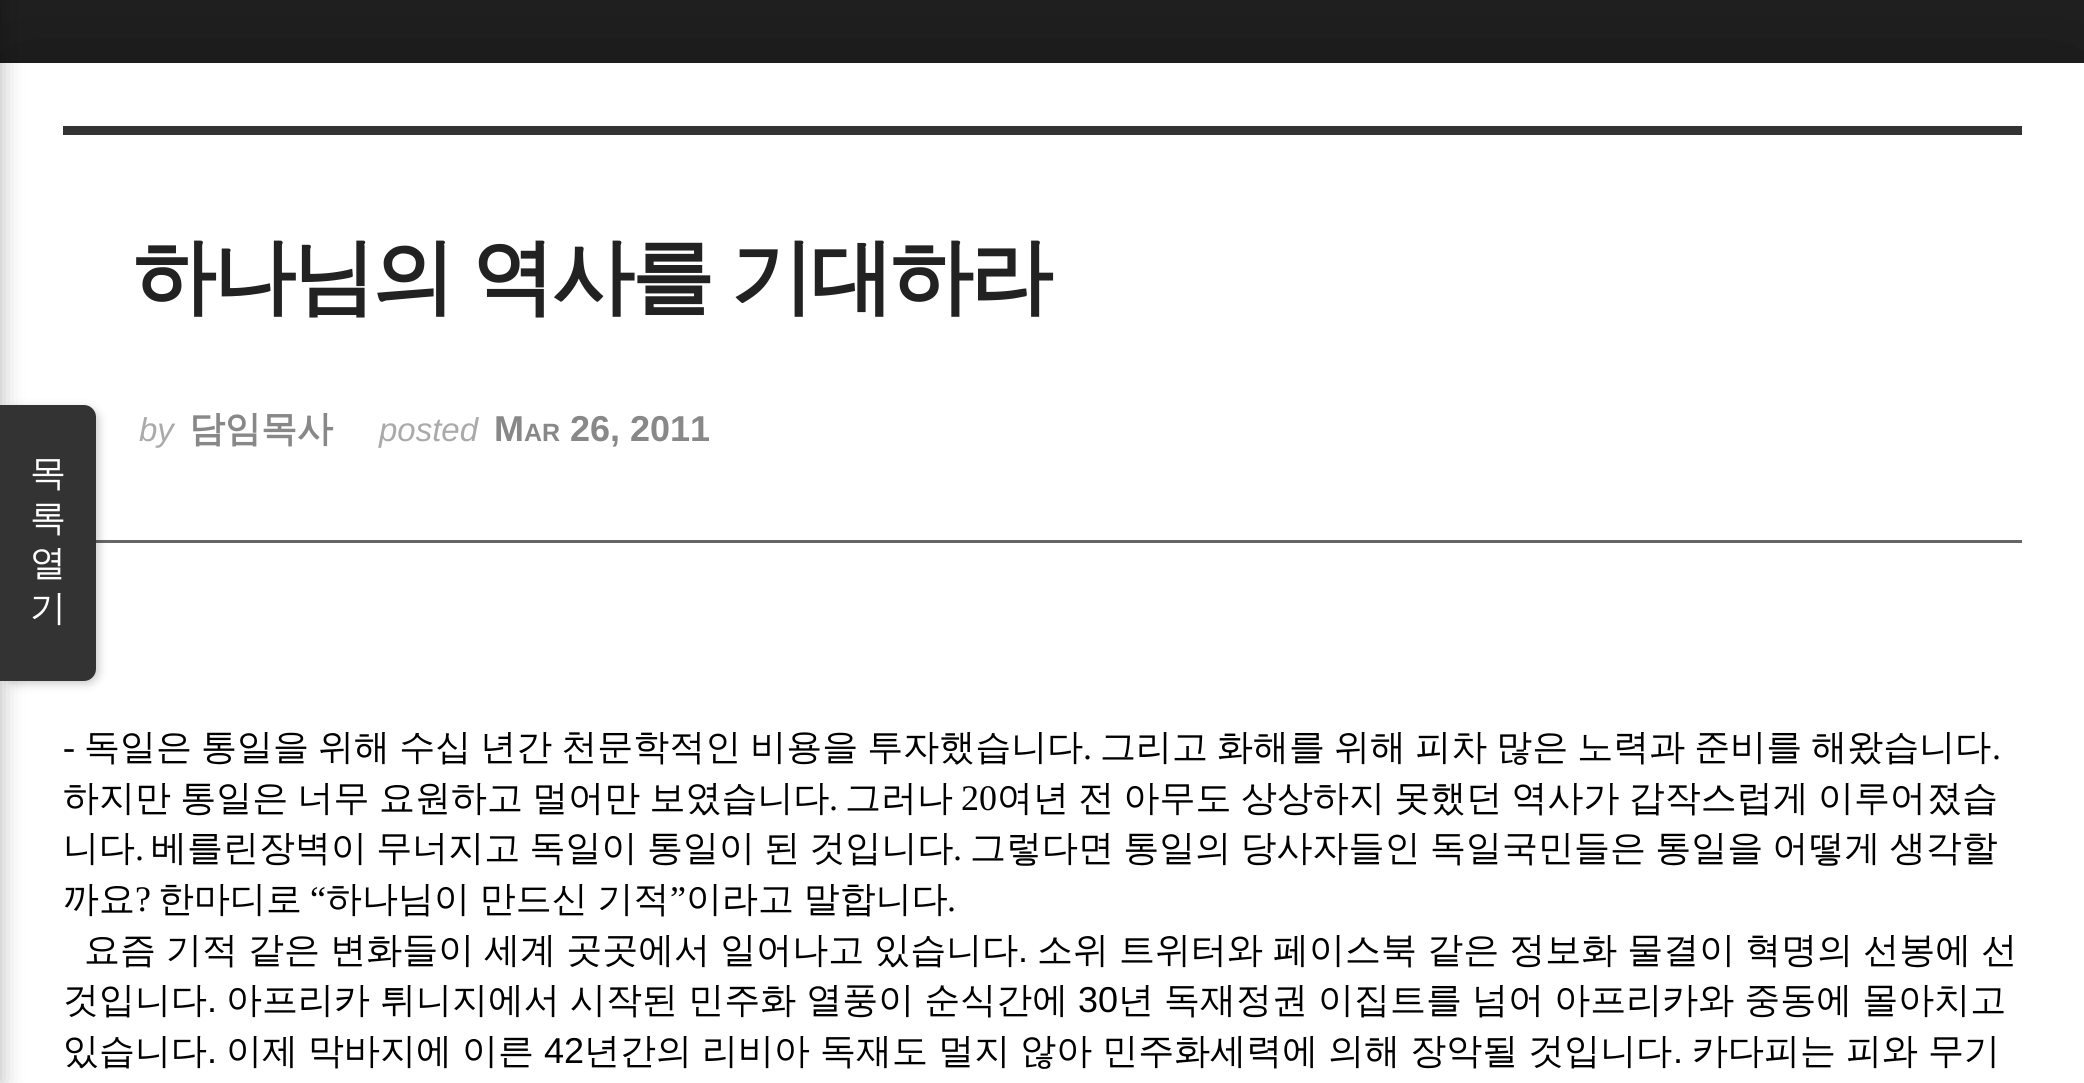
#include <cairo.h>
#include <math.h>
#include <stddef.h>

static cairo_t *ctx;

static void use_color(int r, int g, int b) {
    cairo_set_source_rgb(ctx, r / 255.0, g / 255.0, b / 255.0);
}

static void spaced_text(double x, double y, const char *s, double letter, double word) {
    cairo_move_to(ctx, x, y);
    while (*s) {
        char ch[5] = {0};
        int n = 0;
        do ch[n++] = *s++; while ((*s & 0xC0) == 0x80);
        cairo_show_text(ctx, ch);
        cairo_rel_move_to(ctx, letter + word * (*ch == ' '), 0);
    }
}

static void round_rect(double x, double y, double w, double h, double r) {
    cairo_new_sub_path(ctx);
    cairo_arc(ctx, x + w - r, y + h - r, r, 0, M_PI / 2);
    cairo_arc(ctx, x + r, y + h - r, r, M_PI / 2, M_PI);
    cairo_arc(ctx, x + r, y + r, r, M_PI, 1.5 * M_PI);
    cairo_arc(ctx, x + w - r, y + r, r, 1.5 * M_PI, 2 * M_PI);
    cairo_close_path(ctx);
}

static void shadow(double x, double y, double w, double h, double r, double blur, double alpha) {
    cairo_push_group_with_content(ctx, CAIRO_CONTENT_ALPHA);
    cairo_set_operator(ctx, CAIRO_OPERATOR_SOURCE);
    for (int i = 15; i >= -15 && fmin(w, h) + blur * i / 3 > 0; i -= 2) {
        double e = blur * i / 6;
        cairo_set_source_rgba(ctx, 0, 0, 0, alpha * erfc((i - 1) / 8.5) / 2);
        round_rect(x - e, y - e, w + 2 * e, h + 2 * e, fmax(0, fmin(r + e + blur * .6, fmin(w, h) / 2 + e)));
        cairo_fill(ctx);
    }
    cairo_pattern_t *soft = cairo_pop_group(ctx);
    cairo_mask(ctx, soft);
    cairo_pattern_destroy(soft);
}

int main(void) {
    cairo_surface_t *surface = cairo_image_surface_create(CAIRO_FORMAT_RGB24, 2084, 1083);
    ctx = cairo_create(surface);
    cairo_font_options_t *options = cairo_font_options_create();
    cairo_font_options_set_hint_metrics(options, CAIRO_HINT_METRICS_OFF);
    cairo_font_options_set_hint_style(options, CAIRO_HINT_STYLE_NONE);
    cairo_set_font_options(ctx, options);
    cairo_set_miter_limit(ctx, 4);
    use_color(34, 34, 34);
    cairo_paint(ctx);
    use_color(0, 0, 0);
    shadow(0, 75, 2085, 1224, 0, 72, 0.5);
    use_color(255, 255, 255);
    cairo_rectangle(ctx, 0, 63, 2084, 1020);
    cairo_fill(ctx);
    use_color(0, 0, 0);
    shadow(-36, 0, 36, 1083, 0, 12, 0.3);
    use_color(102, 102, 102);
    cairo_rectangle(ctx, 96, 540, 1926, 3);
    cairo_fill(ctx);
    use_color(0, 0, 0);
    shadow(3, 408, 96, 276, 12, 4.5, 0.2);
    use_color(51, 51, 51);
    cairo_new_path(ctx);
    cairo_move_to(ctx, 0, 405);
    cairo_line_to(ctx, 84, 405);
    cairo_curve_to(ctx, 90.5, 405, 96, 410.5, 96, 417);
    cairo_line_to(ctx, 96, 669);
    cairo_curve_to(ctx, 96, 675.5, 90.5, 681, 84, 681);
    cairo_line_to(ctx, 0, 681);
    cairo_close_path(ctx);
    cairo_fill(ctx);
    cairo_select_font_face(ctx, "WenQuanYi Zen Hei Medium", CAIRO_FONT_SLANT_NORMAL, CAIRO_FONT_WEIGHT_NORMAL);
    cairo_set_font_size(ctx, 36);
    use_color(255, 255, 255);
    cairo_move_to(ctx, 30, 485);
    cairo_show_text(ctx, "목");
    cairo_move_to(ctx, 30, 530);
    cairo_show_text(ctx, "록");
    cairo_move_to(ctx, 30, 575);
    cairo_show_text(ctx, "열");
    cairo_move_to(ctx, 30, 620);
    cairo_show_text(ctx, "기");
    use_color(51, 51, 51);
    cairo_rectangle(ctx, 63, 126, 1959, 9);
    cairo_fill(ctx);
    cairo_select_font_face(ctx, "WenQuanYi Zen Hei", CAIRO_FONT_SLANT_NORMAL, CAIRO_FONT_WEIGHT_BOLD);
    cairo_set_font_size(ctx, 82.75);
    use_color(34, 34, 34);
    spaced_text(133, 305, "하나님의 역사를 기대하라", -3, -2);
    cairo_select_font_face(ctx, "Liberation Sans", CAIRO_FONT_SLANT_ITALIC, CAIRO_FONT_WEIGHT_NORMAL);
    cairo_set_font_size(ctx, 33);
    use_color(170, 170, 170);
    cairo_move_to(ctx, 139, 441);
    cairo_show_text(ctx, "by");
    cairo_select_font_face(ctx, "WenQuanYi Zen Hei", CAIRO_FONT_SLANT_NORMAL, CAIRO_FONT_WEIGHT_BOLD);
    cairo_set_font_size(ctx, 36);
    use_color(136, 136, 136);
    cairo_move_to(ctx, 189, 441);
    cairo_show_text(ctx, "담임목사");
    cairo_select_font_face(ctx, "Liberation Sans", CAIRO_FONT_SLANT_ITALIC, CAIRO_FONT_WEIGHT_NORMAL);
    cairo_set_font_size(ctx, 33);
    use_color(170, 170, 170);
    cairo_move_to(ctx, 379, 441);
    cairo_show_text(ctx, "posted");
    cairo_select_font_face(ctx, "Liberation Sans", CAIRO_FONT_SLANT_NORMAL, CAIRO_FONT_WEIGHT_BOLD);
    cairo_set_font_size(ctx, 36);
    use_color(136, 136, 136);
    cairo_move_to(ctx, 494, 441);
    cairo_show_text(ctx, "M");
    cairo_set_font_size(ctx, 25);
    cairo_move_to(ctx, 524, 441);
    cairo_show_text(ctx, "AR");
    cairo_set_font_size(ctx, 36);
    cairo_move_to(ctx, 570, 441);
    cairo_show_text(ctx, "26, 2011");
    cairo_select_font_face(ctx, "Liberation Serif", CAIRO_FONT_SLANT_NORMAL, CAIRO_FONT_WEIGHT_NORMAL);
    use_color(0, 0, 0);
    cairo_move_to(ctx, 63, 759);
    cairo_show_text(ctx, "-");
    cairo_select_font_face(ctx, "WenQuanYi Zen Hei Medium", CAIRO_FONT_SLANT_NORMAL, CAIRO_FONT_WEIGHT_NORMAL);
    spaced_text(84, 759, "독일은 통일을 위해 수십 년간 천문학적인 비용을 투자했습니다", 0, -1.75);
    spaced_text(1100, 759, "그리고 화해를 위해 피차 많은 노력과 준비를 해왔습니다", 0, -1.75);
    cairo_select_font_face(ctx, "Liberation Serif", CAIRO_FONT_SLANT_NORMAL, CAIRO_FONT_WEIGHT_NORMAL);
    cairo_move_to(ctx, 1083, 759);
    cairo_show_text(ctx, ".");
    cairo_move_to(ctx, 1992, 759);
    cairo_show_text(ctx, ".");
    cairo_select_font_face(ctx, "WenQuanYi Zen Hei Medium", CAIRO_FONT_SLANT_NORMAL, CAIRO_FONT_WEIGHT_NORMAL);
    spaced_text(63, 810, "하지만 통일은 너무 요원하고 멀어만 보였습니다", 0, -1.5);
    cairo_select_font_face(ctx, "Liberation Serif", CAIRO_FONT_SLANT_NORMAL, CAIRO_FONT_WEIGHT_NORMAL);
    cairo_move_to(ctx, 829, 810);
    cairo_show_text(ctx, ".");
    cairo_select_font_face(ctx, "WenQuanYi Zen Hei Medium", CAIRO_FONT_SLANT_NORMAL, CAIRO_FONT_WEIGHT_NORMAL);
    cairo_move_to(ctx, 845, 810);
    cairo_show_text(ctx, "그러나");
    cairo_select_font_face(ctx, "Liberation Serif", CAIRO_FONT_SLANT_NORMAL, CAIRO_FONT_WEIGHT_NORMAL);
    cairo_move_to(ctx, 961, 810);
    cairo_show_text(ctx, "20");
    cairo_select_font_face(ctx, "WenQuanYi Zen Hei Medium", CAIRO_FONT_SLANT_NORMAL, CAIRO_FONT_WEIGHT_NORMAL);
    spaced_text(997, 810, "여년 전 아무도 상상하지 못했던 역사가 갑작스럽게 이루어졌습", 0, -1.5);
    cairo_move_to(ctx, 63, 860);
    cairo_show_text(ctx, "니다");
    cairo_select_font_face(ctx, "Liberation Serif", CAIRO_FONT_SLANT_NORMAL, CAIRO_FONT_WEIGHT_NORMAL);
    cairo_move_to(ctx, 135, 860);
    cairo_show_text(ctx, ".");
    cairo_select_font_face(ctx, "WenQuanYi Zen Hei Medium", CAIRO_FONT_SLANT_NORMAL, CAIRO_FONT_WEIGHT_NORMAL);
    spaced_text(151, 860, "베를린장벽이 무너지고 독일이 통일이 된 것입니다", 0, -1.5);
    cairo_select_font_face(ctx, "Liberation Serif", CAIRO_FONT_SLANT_NORMAL, CAIRO_FONT_WEIGHT_NORMAL);
    cairo_move_to(ctx, 953, 860);
    cairo_show_text(ctx, ".");
    cairo_select_font_face(ctx, "WenQuanYi Zen Hei Medium", CAIRO_FONT_SLANT_NORMAL, CAIRO_FONT_WEIGHT_NORMAL);
    spaced_text(970, 860, "그렇다면 통일의 당사자들인 독일국민들은 통일을 어떻게 생각할", 0, -1.5);
    cairo_move_to(ctx, 63, 911);
    cairo_show_text(ctx, "까요");
    cairo_select_font_face(ctx, "Liberation Serif", CAIRO_FONT_SLANT_NORMAL, CAIRO_FONT_WEIGHT_NORMAL);
    cairo_move_to(ctx, 135, 911);
    cairo_show_text(ctx, "?");
    cairo_select_font_face(ctx, "WenQuanYi Zen Hei Medium", CAIRO_FONT_SLANT_NORMAL, CAIRO_FONT_WEIGHT_NORMAL);
    cairo_move_to(ctx, 158, 911);
    cairo_show_text(ctx, "한마디로");
    cairo_select_font_face(ctx, "Liberation Serif", CAIRO_FONT_SLANT_NORMAL, CAIRO_FONT_WEIGHT_NORMAL);
    cairo_move_to(ctx, 310, 911);
    cairo_show_text(ctx, "“");
    cairo_select_font_face(ctx, "WenQuanYi Zen Hei Medium", CAIRO_FONT_SLANT_NORMAL, CAIRO_FONT_WEIGHT_NORMAL);
    spaced_text(326, 911, "하나님이 만드신 기적", 0, -1);
    cairo_select_font_face(ctx, "Liberation Serif", CAIRO_FONT_SLANT_NORMAL, CAIRO_FONT_WEIGHT_NORMAL);
    cairo_move_to(ctx, 670, 911);
    cairo_show_text(ctx, "”");
    cairo_select_font_face(ctx, "WenQuanYi Zen Hei Medium", CAIRO_FONT_SLANT_NORMAL, CAIRO_FONT_WEIGHT_NORMAL);
    spaced_text(686, 911, "이라고 말합니다", 0, -1);
    cairo_select_font_face(ctx, "Liberation Serif", CAIRO_FONT_SLANT_NORMAL, CAIRO_FONT_WEIGHT_NORMAL);
    cairo_move_to(ctx, 947, 911);
    cairo_show_text(ctx, ".");
    cairo_select_font_face(ctx, "WenQuanYi Zen Hei Medium", CAIRO_FONT_SLANT_NORMAL, CAIRO_FONT_WEIGHT_NORMAL);
    spaced_text(84, 962, "요즘 기적 같은 변화들이 세계 곳곳에서 일어나고 있습니다", 0, -0.75);
    cairo_select_font_face(ctx, "Liberation Sans", CAIRO_FONT_SLANT_NORMAL, CAIRO_FONT_WEIGHT_NORMAL);
    cairo_move_to(ctx, 1018, 962);
    cairo_show_text(ctx, ".");
    cairo_select_font_face(ctx, "WenQuanYi Zen Hei Medium", CAIRO_FONT_SLANT_NORMAL, CAIRO_FONT_WEIGHT_NORMAL);
    spaced_text(1037, 962, "소위 트위터와 페이스북 같은 정보화 물결이 혁명의 선봉에 선", 0, -0.75);
    cairo_move_to(ctx, 63, 1012);
    cairo_show_text(ctx, "것입니다");
    cairo_select_font_face(ctx, "Liberation Sans", CAIRO_FONT_SLANT_NORMAL, CAIRO_FONT_WEIGHT_NORMAL);
    cairo_move_to(ctx, 207, 1012);
    cairo_show_text(ctx, ".");
    cairo_select_font_face(ctx, "WenQuanYi Zen Hei Medium", CAIRO_FONT_SLANT_NORMAL, CAIRO_FONT_WEIGHT_NORMAL);
    spaced_text(226, 1012, "아프리카 튀니지에서 시작된 민주화 열풍이 순식간에", 0, -0.75);
    cairo_select_font_face(ctx, "Liberation Sans", CAIRO_FONT_SLANT_NORMAL, CAIRO_FONT_WEIGHT_NORMAL);
    cairo_move_to(ctx, 1078, 1012);
    cairo_show_text(ctx, "30");
    cairo_select_font_face(ctx, "WenQuanYi Zen Hei Medium", CAIRO_FONT_SLANT_NORMAL, CAIRO_FONT_WEIGHT_NORMAL);
    spaced_text(1118, 1012, "년 독재정권 이집트를 넘어 아프리카와 중동에 몰아치고", 0, -0.75);
    cairo_move_to(ctx, 63, 1063);
    cairo_show_text(ctx, "있습니다");
    cairo_select_font_face(ctx, "Liberation Sans", CAIRO_FONT_SLANT_NORMAL, CAIRO_FONT_WEIGHT_NORMAL);
    cairo_move_to(ctx, 207, 1063);
    cairo_show_text(ctx, ".");
    cairo_select_font_face(ctx, "WenQuanYi Zen Hei Medium", CAIRO_FONT_SLANT_NORMAL, CAIRO_FONT_WEIGHT_NORMAL);
    spaced_text(226, 1063, "이제 막바지에 이른", 0, -0.75);
    cairo_select_font_face(ctx, "Liberation Sans", CAIRO_FONT_SLANT_NORMAL, CAIRO_FONT_WEIGHT_NORMAL);
    cairo_move_to(ctx, 544, 1063);
    cairo_show_text(ctx, "42");
    cairo_select_font_face(ctx, "WenQuanYi Zen Hei Medium", CAIRO_FONT_SLANT_NORMAL, CAIRO_FONT_WEIGHT_NORMAL);
    spaced_text(584, 1063, "년간의 리비아 독재도 멀지 않아 민주화세력에 의해 장악될 것입니다", 0, -0.75);
    cairo_select_font_face(ctx, "Liberation Sans", CAIRO_FONT_SLANT_NORMAL, CAIRO_FONT_WEIGHT_NORMAL);
    cairo_move_to(ctx, 1673, 1063);
    cairo_show_text(ctx, ".");
    cairo_select_font_face(ctx, "WenQuanYi Zen Hei Medium", CAIRO_FONT_SLANT_NORMAL, CAIRO_FONT_WEIGHT_NORMAL);
    spaced_text(1692, 1063, "카다피는 피와 무기", 0, -0.75);
    cairo_surface_write_to_png(surface, "result.png");
    cairo_font_options_destroy(options);
    cairo_destroy(ctx);
    cairo_surface_destroy(surface);
    return 0;
}
